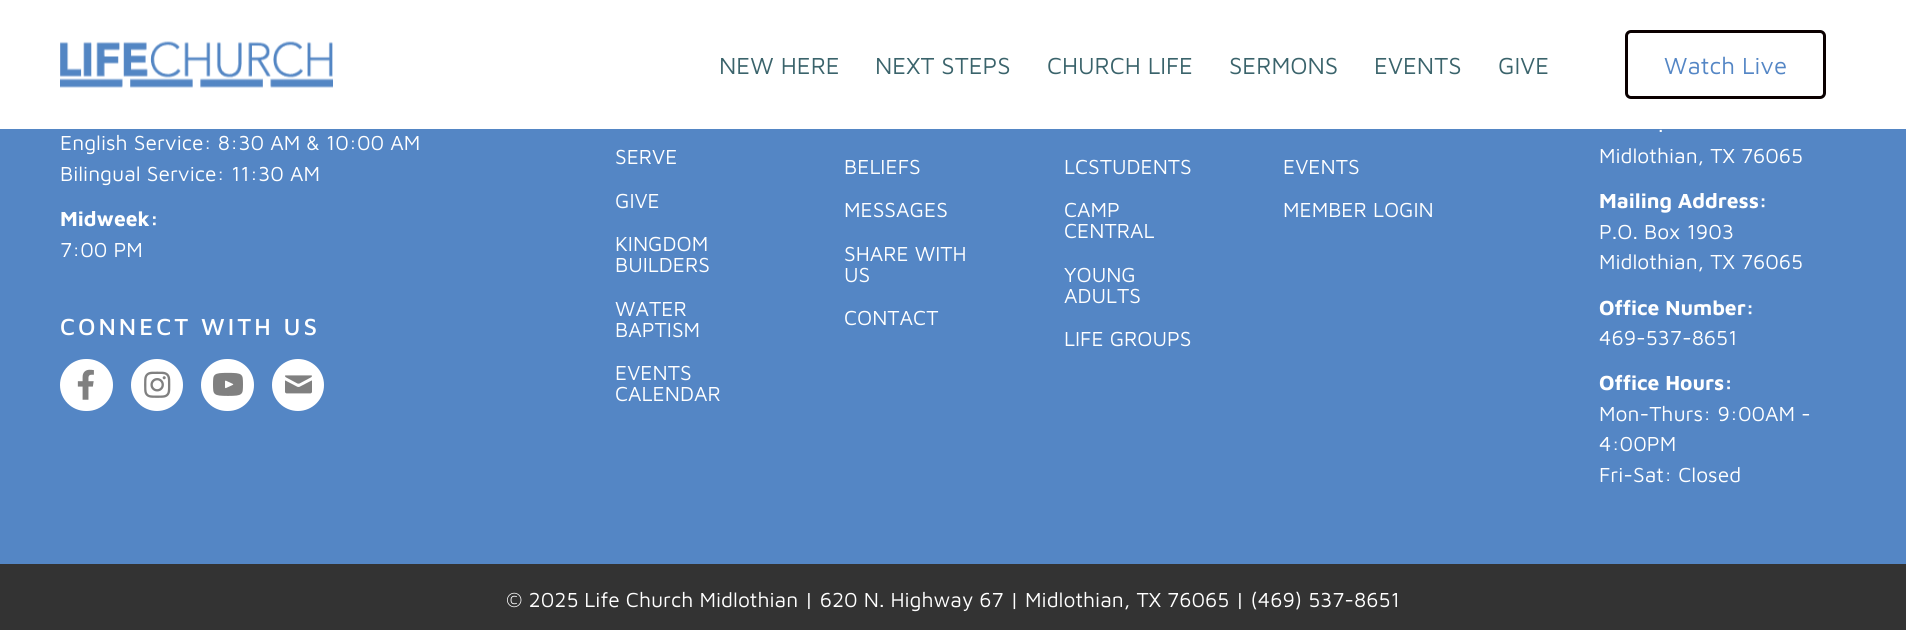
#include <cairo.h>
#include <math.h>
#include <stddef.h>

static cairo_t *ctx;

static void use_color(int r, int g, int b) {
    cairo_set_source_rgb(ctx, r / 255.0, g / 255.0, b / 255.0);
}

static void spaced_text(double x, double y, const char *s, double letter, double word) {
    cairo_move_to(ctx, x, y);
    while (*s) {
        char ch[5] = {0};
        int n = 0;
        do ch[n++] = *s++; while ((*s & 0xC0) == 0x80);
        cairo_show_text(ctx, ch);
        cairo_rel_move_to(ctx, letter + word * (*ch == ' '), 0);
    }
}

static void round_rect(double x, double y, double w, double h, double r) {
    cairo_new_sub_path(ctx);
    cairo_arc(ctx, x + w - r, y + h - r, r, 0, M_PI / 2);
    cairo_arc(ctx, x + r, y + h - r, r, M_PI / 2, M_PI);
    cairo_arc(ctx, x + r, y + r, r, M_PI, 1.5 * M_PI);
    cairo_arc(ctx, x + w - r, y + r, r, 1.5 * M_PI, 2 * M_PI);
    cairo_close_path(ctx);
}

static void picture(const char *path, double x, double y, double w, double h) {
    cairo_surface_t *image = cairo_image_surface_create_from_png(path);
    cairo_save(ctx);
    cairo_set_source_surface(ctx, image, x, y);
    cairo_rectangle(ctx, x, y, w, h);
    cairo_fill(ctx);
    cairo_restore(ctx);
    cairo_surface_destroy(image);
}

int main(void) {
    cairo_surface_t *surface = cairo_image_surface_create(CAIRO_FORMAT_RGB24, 1906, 630);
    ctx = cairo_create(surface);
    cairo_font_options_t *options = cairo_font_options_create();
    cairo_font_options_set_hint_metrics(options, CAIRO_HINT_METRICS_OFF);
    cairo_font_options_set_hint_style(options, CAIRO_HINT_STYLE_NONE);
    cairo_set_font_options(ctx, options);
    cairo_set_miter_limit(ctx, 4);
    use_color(84, 134, 197);
    cairo_paint(ctx);
    use_color(255, 255, 255);
    cairo_rectangle(ctx, 0, 0, 1906, 129);
    cairo_fill(ctx);
    picture("img1.png", 60, 41, 273, 47);
    cairo_select_font_face(ctx, "Maven Pro", CAIRO_FONT_SLANT_NORMAL, CAIRO_FONT_WEIGHT_NORMAL);
    cairo_set_font_size(ctx, 24);
    use_color(58, 99, 107);
    cairo_move_to(ctx, 719, 74);
    cairo_show_text(ctx, "NEW HERE");
    cairo_move_to(ctx, 875, 74);
    cairo_show_text(ctx, "NEXT STEPS");
    cairo_move_to(ctx, 1047, 74);
    cairo_show_text(ctx, "CHURCH LIFE");
    cairo_move_to(ctx, 1229, 74);
    cairo_show_text(ctx, "SERMONS");
    cairo_move_to(ctx, 1374, 74);
    cairo_show_text(ctx, "EVENTS");
    cairo_move_to(ctx, 1498, 74);
    cairo_show_text(ctx, "GIVE");
    round_rect(1626.5, 31.5, 198, 66, 4.5);
    use_color(10, 0, 0);
    cairo_set_line_width(ctx, 3);
    cairo_stroke(ctx);
    use_color(84, 134, 197);
    cairo_move_to(ctx, 1664, 74);
    cairo_show_text(ctx, "Watch Live");
    cairo_set_font_size(ctx, 21);
    use_color(255, 255, 255);
    cairo_move_to(ctx, 60, 150);
    cairo_show_text(ctx, "English Service: 8:30 AM & 10:00 AM");
    cairo_move_to(ctx, 60, 181);
    cairo_show_text(ctx, "Bilingual Service: 11:30 AM");
    cairo_select_font_face(ctx, "Maven Pro", CAIRO_FONT_SLANT_NORMAL, CAIRO_FONT_WEIGHT_BOLD);
    cairo_move_to(ctx, 60, 226);
    cairo_show_text(ctx, "Midweek:");
    cairo_select_font_face(ctx, "Maven Pro", CAIRO_FONT_SLANT_NORMAL, CAIRO_FONT_WEIGHT_NORMAL);
    cairo_move_to(ctx, 60, 257);
    cairo_show_text(ctx, "7:00 PM");
    cairo_select_font_face(ctx, "Maven Pro Medium", CAIRO_FONT_SLANT_NORMAL, CAIRO_FONT_WEIGHT_NORMAL);
    cairo_set_font_size(ctx, 24);
    spaced_text(60, 335, "CONNECT WITH US", 3, 0);
    round_rect(60, 359, 53, 52, 26);
    cairo_fill(ctx);
    picture("img2.png", 77, 369, 17, 31);
    cairo_arc(ctx, 157, 385, 26, 0, 2 * M_PI);
    cairo_fill(ctx);
    picture("img3.png", 144, 371, 27, 27);
    round_rect(201, 359, 53, 52, 26);
    cairo_fill(ctx);
    picture("img4.png", 213, 372, 30, 24);
    cairo_arc(ctx, 298, 385, 26, 0, 2 * M_PI);
    cairo_fill(ctx);
    picture("img5.png", 285, 375, 27, 19);
    cairo_select_font_face(ctx, "Maven Pro", CAIRO_FONT_SLANT_NORMAL, CAIRO_FONT_WEIGHT_NORMAL);
    cairo_set_font_size(ctx, 21);
    cairo_move_to(ctx, 615, 164);
    cairo_show_text(ctx, "SERVE");
    cairo_move_to(ctx, 615, 208);
    cairo_show_text(ctx, "GIVE");
    cairo_move_to(ctx, 615, 251);
    cairo_show_text(ctx, "KINGDOM");
    cairo_move_to(ctx, 615, 272);
    cairo_show_text(ctx, "BUILDERS");
    cairo_move_to(ctx, 615, 316);
    cairo_show_text(ctx, "WATER");
    cairo_move_to(ctx, 615, 337);
    cairo_show_text(ctx, "BAPTISM");
    cairo_move_to(ctx, 615, 380);
    cairo_show_text(ctx, "EVENTS");
    cairo_move_to(ctx, 615, 401);
    cairo_show_text(ctx, "CALENDAR");
    cairo_move_to(ctx, 844, 174);
    cairo_show_text(ctx, "BELIEFS");
    cairo_move_to(ctx, 844, 217);
    cairo_show_text(ctx, "MESSAGES");
    cairo_move_to(ctx, 844, 261);
    cairo_show_text(ctx, "SHARE WITH");
    cairo_move_to(ctx, 844, 282);
    cairo_show_text(ctx, "US");
    cairo_move_to(ctx, 844, 325);
    cairo_show_text(ctx, "CONTACT");
    cairo_move_to(ctx, 1064, 174);
    cairo_show_text(ctx, "LCSTUDENTS");
    cairo_move_to(ctx, 1064, 217);
    cairo_show_text(ctx, "CAMP");
    cairo_move_to(ctx, 1064, 238);
    cairo_show_text(ctx, "CENTRAL");
    cairo_move_to(ctx, 1064, 282);
    cairo_show_text(ctx, "YOUNG");
    cairo_move_to(ctx, 1064, 303);
    cairo_show_text(ctx, "ADULTS");
    cairo_move_to(ctx, 1064, 346);
    cairo_show_text(ctx, "LIFE GROUPS");
    cairo_move_to(ctx, 1283, 174);
    cairo_show_text(ctx, "EVENTS");
    cairo_move_to(ctx, 1283, 217);
    cairo_show_text(ctx, "MEMBER LOGIN");
    cairo_move_to(ctx, 1658, 132);
    cairo_show_text(ctx, ".");
    cairo_move_to(ctx, 1599, 163);
    cairo_show_text(ctx, "Midlothian, TX 76065");
    cairo_select_font_face(ctx, "Maven Pro", CAIRO_FONT_SLANT_NORMAL, CAIRO_FONT_WEIGHT_BOLD);
    cairo_move_to(ctx, 1599, 208);
    cairo_show_text(ctx, "Mailing Address:");
    cairo_select_font_face(ctx, "Maven Pro", CAIRO_FONT_SLANT_NORMAL, CAIRO_FONT_WEIGHT_NORMAL);
    cairo_move_to(ctx, 1599, 239);
    cairo_show_text(ctx, "P.O. Box 1903");
    cairo_move_to(ctx, 1599, 269);
    cairo_show_text(ctx, "Midlothian, TX 76065");
    cairo_select_font_face(ctx, "Maven Pro", CAIRO_FONT_SLANT_NORMAL, CAIRO_FONT_WEIGHT_BOLD);
    cairo_move_to(ctx, 1599, 315);
    cairo_show_text(ctx, "Office Number:");
    cairo_select_font_face(ctx, "Maven Pro", CAIRO_FONT_SLANT_NORMAL, CAIRO_FONT_WEIGHT_NORMAL);
    cairo_move_to(ctx, 1599, 345);
    cairo_show_text(ctx, "469-537-8651");
    cairo_select_font_face(ctx, "Maven Pro", CAIRO_FONT_SLANT_NORMAL, CAIRO_FONT_WEIGHT_BOLD);
    cairo_move_to(ctx, 1599, 390);
    cairo_show_text(ctx, "Office Hours:");
    cairo_select_font_face(ctx, "Maven Pro", CAIRO_FONT_SLANT_NORMAL, CAIRO_FONT_WEIGHT_NORMAL);
    cairo_move_to(ctx, 1599, 421);
    cairo_show_text(ctx, "Mon-Thurs: 9:00AM -");
    cairo_move_to(ctx, 1599, 451);
    cairo_show_text(ctx, "4:00PM");
    cairo_move_to(ctx, 1599, 482);
    cairo_show_text(ctx, "Fri-Sat: Closed");
    use_color(51, 51, 51);
    cairo_rectangle(ctx, 0, 564, 1906, 66);
    cairo_fill(ctx);
    use_color(255, 255, 255);
    cairo_move_to(ctx, 506, 607);
    cairo_show_text(ctx, "© 2025 Life Church Midlothian | 620 N. Highway 67 | Midlothian, TX 76065 | (469) 537-8651");
    cairo_surface_write_to_png(surface, "result.png");
    cairo_font_options_destroy(options);
    cairo_destroy(ctx);
    cairo_surface_destroy(surface);
    return 0;
}
